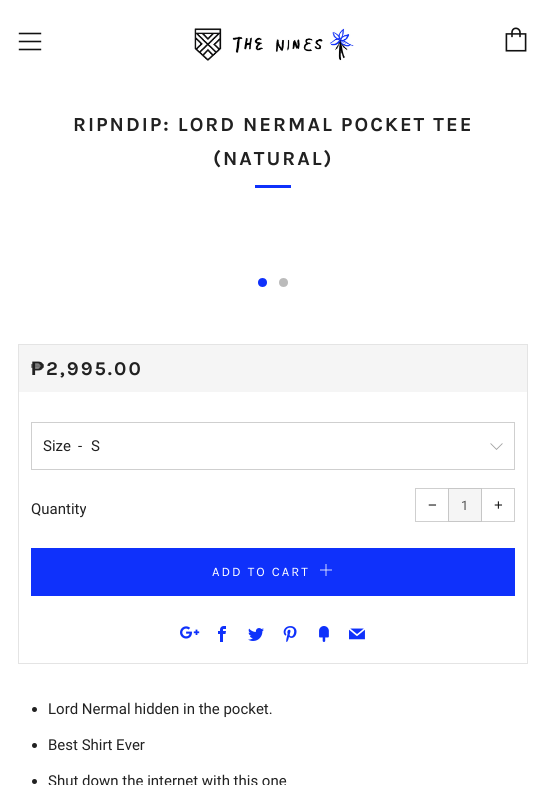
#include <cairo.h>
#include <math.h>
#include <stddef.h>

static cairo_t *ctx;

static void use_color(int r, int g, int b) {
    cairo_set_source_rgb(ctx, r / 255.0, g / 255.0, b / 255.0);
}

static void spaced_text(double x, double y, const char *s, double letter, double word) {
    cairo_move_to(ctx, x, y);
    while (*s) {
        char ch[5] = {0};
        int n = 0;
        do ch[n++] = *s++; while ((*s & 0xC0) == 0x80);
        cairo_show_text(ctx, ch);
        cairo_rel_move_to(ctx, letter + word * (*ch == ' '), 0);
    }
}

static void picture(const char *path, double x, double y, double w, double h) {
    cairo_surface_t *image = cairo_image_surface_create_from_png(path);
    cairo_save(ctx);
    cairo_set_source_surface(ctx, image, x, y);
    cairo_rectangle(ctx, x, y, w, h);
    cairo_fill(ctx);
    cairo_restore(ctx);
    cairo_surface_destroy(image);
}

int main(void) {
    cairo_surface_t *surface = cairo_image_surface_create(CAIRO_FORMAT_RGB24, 546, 785);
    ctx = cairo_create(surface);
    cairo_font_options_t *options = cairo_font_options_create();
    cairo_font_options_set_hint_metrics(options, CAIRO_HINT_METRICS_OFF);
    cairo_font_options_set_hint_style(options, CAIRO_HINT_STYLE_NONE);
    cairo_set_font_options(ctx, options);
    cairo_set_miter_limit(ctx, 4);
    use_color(255, 255, 255);
    cairo_paint(ctx);
    picture("img1.png", 18, 32, 24, 19);
    picture("img2.png", 194, 28, 160, 33);
    picture("img3.png", 505, 27, 22, 25);
    cairo_select_font_face(ctx, "Karla", CAIRO_FONT_SLANT_NORMAL, CAIRO_FONT_WEIGHT_BOLD);
    cairo_set_font_size(ctx, 20);
    use_color(33, 33, 33);
    spaced_text(73, 131, "RIPNDIP: LORD NERMAL POCKET TEE", 2, 0);
    spaced_text(213, 165, "(NATURAL)", 2, 0);
    use_color(15, 49, 251);
    cairo_rectangle(ctx, 255, 185, 36, 3);
    cairo_fill(ctx);
    cairo_arc(ctx, 262.5, 282.5, 4.5, 0, 2 * M_PI);
    cairo_fill(ctx);
    use_color(187, 187, 187);
    cairo_arc(ctx, 283.5, 282.5, 4.5, 0, 2 * M_PI);
    cairo_fill(ctx);
    cairo_rectangle(ctx, 18.5, 344.5, 509, 319);
    use_color(228, 228, 228);
    cairo_set_line_width(ctx, 1);
    cairo_stroke(ctx);
    use_color(245, 245, 245);
    cairo_rectangle(ctx, 19, 345, 508, 47);
    cairo_fill(ctx);
    cairo_select_font_face(ctx, "Liberation Sans", CAIRO_FONT_SLANT_NORMAL, CAIRO_FONT_WEIGHT_BOLD);
    cairo_set_font_size(ctx, 19.5);
    use_color(33, 33, 33);
    spaced_text(31, 375, "₱", 2, 0);
    cairo_select_font_face(ctx, "Karla", CAIRO_FONT_SLANT_NORMAL, CAIRO_FONT_WEIGHT_BOLD);
    spaced_text(46, 375, "2,995.00", 2, 0);
    cairo_rectangle(ctx, 31.5, 422.5, 483, 47);
    use_color(207, 207, 207);
    cairo_stroke(ctx);
    cairo_select_font_face(ctx, "Roboto", CAIRO_FONT_SLANT_NORMAL, CAIRO_FONT_WEIGHT_NORMAL);
    cairo_set_font_size(ctx, 15);
    use_color(33, 33, 33);
    cairo_move_to(ctx, 43, 451);
    cairo_show_text(ctx, "Size");
    cairo_move_to(ctx, 78, 451);
    cairo_show_text(ctx, "-");
    cairo_move_to(ctx, 91, 451);
    cairo_show_text(ctx, "S");
    picture("img4.png", 490, 443, 13, 7);
    cairo_move_to(ctx, 31, 514);
    cairo_show_text(ctx, "Quantity");
    cairo_rectangle(ctx, 415.5, 488.5, 33, 33);
    use_color(207, 207, 207);
    cairo_stroke(ctx);
    cairo_select_font_face(ctx, "Liberation Sans", CAIRO_FONT_SLANT_NORMAL, CAIRO_FONT_WEIGHT_NORMAL);
    use_color(17, 17, 17);
    cairo_move_to(ctx, 428, 510);
    cairo_show_text(ctx, "−");
    use_color(245, 245, 245);
    cairo_rectangle(ctx, 448.5, 488.5, 33, 33);
    cairo_fill_preserve(ctx);
    use_color(199, 199, 199);
    cairo_stroke(ctx);
    cairo_select_font_face(ctx, "Roboto", CAIRO_FONT_SLANT_NORMAL, CAIRO_FONT_WEIGHT_NORMAL);
    cairo_set_font_size(ctx, 13);
    use_color(85, 85, 85);
    cairo_move_to(ctx, 461, 510);
    cairo_show_text(ctx, "1");
    cairo_set_source_rgba(ctx, 1, 1, 1, 0.8);
    cairo_rectangle(ctx, 481, 488, 1, 34);
    cairo_fill(ctx);
    cairo_rectangle(ctx, 481.5, 488.5, 33, 33);
    cairo_set_source_rgba(ctx, 0.067, 0.067, 0.067, 0.2);
    cairo_stroke(ctx);
    cairo_select_font_face(ctx, "Liberation Sans", CAIRO_FONT_SLANT_NORMAL, CAIRO_FONT_WEIGHT_NORMAL);
    cairo_set_font_size(ctx, 15);
    use_color(17, 17, 17);
    cairo_move_to(ctx, 494, 510);
    cairo_show_text(ctx, "+");
    use_color(15, 49, 251);
    cairo_rectangle(ctx, 31, 548, 484, 48);
    cairo_fill(ctx);
    cairo_select_font_face(ctx, "Karla", CAIRO_FONT_SLANT_NORMAL, CAIRO_FONT_WEIGHT_NORMAL);
    cairo_set_font_size(ctx, 13);
    use_color(255, 255, 255);
    spaced_text(212, 576, "ADD TO CART", 2, 0);
    picture("img5.png", 320, 564, 12, 12);
    picture("img6.png", 180, 626, 20, 13);
    picture("img7.png", 218, 626, 8, 16);
    picture("img8.png", 248, 628, 16, 13);
    picture("img9.png", 283, 626, 14, 16);
    picture("img10.png", 319, 626, 10, 16);
    picture("img11.png", 349, 628, 16, 12);
    use_color(33, 33, 33);
    cairo_arc(ctx, 34.5, 709.5, 2.5, 0, 2 * M_PI);
    cairo_fill(ctx);
    cairo_select_font_face(ctx, "Roboto", CAIRO_FONT_SLANT_NORMAL, CAIRO_FONT_WEIGHT_NORMAL);
    cairo_set_font_size(ctx, 15);
    cairo_move_to(ctx, 48, 714);
    cairo_show_text(ctx, "Lord Nermal hidden in the pocket.");
    cairo_new_path(ctx);
    cairo_arc(ctx, 34.5, 745.5, 2.5, 0, 2 * M_PI);
    cairo_fill(ctx);
    cairo_move_to(ctx, 48, 750);
    cairo_show_text(ctx, "Best Shirt Ever");
    cairo_new_path(ctx);
    cairo_arc(ctx, 34.5, 781.5, 2.5, 0, 2 * M_PI);
    cairo_fill(ctx);
    cairo_move_to(ctx, 48, 786);
    cairo_show_text(ctx, "Shut down the internet with this one");
    cairo_surface_write_to_png(surface, "result.png");
    cairo_font_options_destroy(options);
    cairo_destroy(ctx);
    cairo_surface_destroy(surface);
    return 0;
}
